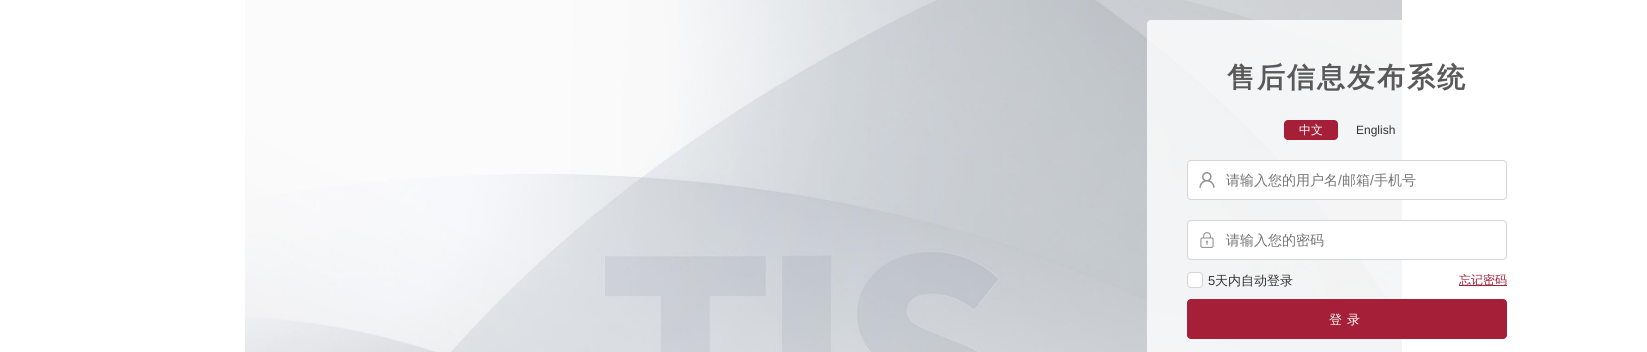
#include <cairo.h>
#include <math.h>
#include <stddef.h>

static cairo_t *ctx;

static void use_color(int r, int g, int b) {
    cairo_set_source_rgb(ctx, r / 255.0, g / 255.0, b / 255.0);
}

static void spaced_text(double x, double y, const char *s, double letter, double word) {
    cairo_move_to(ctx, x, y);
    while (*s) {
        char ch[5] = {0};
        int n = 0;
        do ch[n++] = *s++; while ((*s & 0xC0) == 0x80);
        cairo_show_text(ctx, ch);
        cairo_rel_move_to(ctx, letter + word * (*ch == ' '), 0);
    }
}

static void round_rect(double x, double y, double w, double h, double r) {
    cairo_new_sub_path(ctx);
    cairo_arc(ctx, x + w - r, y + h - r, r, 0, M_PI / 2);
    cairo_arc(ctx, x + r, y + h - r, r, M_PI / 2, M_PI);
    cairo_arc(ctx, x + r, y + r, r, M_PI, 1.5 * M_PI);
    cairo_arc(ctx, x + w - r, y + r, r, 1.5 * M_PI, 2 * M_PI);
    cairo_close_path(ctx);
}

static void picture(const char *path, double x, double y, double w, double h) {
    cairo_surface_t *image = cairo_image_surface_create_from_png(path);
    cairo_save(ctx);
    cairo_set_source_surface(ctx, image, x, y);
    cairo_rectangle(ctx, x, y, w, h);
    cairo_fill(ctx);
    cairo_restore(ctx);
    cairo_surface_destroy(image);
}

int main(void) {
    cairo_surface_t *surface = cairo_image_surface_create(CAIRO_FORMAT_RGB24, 1647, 352);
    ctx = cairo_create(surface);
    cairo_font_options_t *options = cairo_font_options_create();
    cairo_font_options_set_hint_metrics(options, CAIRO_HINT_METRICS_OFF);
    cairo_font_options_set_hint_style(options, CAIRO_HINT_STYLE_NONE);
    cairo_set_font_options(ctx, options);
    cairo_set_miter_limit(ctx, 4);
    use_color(255, 255, 255);
    cairo_paint(ctx);
    picture("img1.png", 245, 0, 1157, 352);
    cairo_set_source_rgba(ctx, 1, 1, 1, 0.8);
    round_rect(1147, 20, 400, 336, 4);
    cairo_fill(ctx);
    cairo_select_font_face(ctx, "WenQuanYi Zen Hei", CAIRO_FONT_SLANT_NORMAL, CAIRO_FONT_WEIGHT_BOLD);
    cairo_set_font_size(ctx, 28);
    use_color(89, 89, 89);
    spaced_text(1227, 87, "售后信息发布系统", 2, 0);
    use_color(166, 31, 56);
    round_rect(1284, 120, 54, 20, 4);
    cairo_fill(ctx);
    cairo_select_font_face(ctx, "WenQuanYi Zen Hei Medium", CAIRO_FONT_SLANT_NORMAL, CAIRO_FONT_WEIGHT_NORMAL);
    cairo_set_font_size(ctx, 12);
    use_color(255, 255, 255);
    cairo_move_to(ctx, 1299, 134);
    cairo_show_text(ctx, "中文");
    cairo_select_font_face(ctx, "Liberation Sans", CAIRO_FONT_SLANT_NORMAL, CAIRO_FONT_WEIGHT_NORMAL);
    use_color(51, 51, 51);
    cairo_move_to(ctx, 1356, 134);
    cairo_show_text(ctx, "English");
    use_color(255, 255, 255);
    round_rect(1187.5, 160.5, 319, 39, 3.5);
    cairo_fill_preserve(ctx);
    use_color(213, 213, 213);
    cairo_set_line_width(ctx, 1);
    cairo_stroke(ctx);
    picture("img2.png", 1199, 172, 16, 16);
    cairo_select_font_face(ctx, "WenQuanYi Zen Hei Medium", CAIRO_FONT_SLANT_NORMAL, CAIRO_FONT_WEIGHT_NORMAL);
    cairo_set_font_size(ctx, 14);
    use_color(117, 117, 117);
    cairo_move_to(ctx, 1226, 185);
    cairo_show_text(ctx, "请输入您的用户名");
    cairo_select_font_face(ctx, "Liberation Sans", CAIRO_FONT_SLANT_NORMAL, CAIRO_FONT_WEIGHT_NORMAL);
    cairo_move_to(ctx, 1338, 185);
    cairo_show_text(ctx, "/");
    cairo_select_font_face(ctx, "WenQuanYi Zen Hei Medium", CAIRO_FONT_SLANT_NORMAL, CAIRO_FONT_WEIGHT_NORMAL);
    cairo_move_to(ctx, 1342, 185);
    cairo_show_text(ctx, "邮箱");
    cairo_select_font_face(ctx, "Liberation Sans", CAIRO_FONT_SLANT_NORMAL, CAIRO_FONT_WEIGHT_NORMAL);
    cairo_move_to(ctx, 1370, 185);
    cairo_show_text(ctx, "/");
    cairo_select_font_face(ctx, "WenQuanYi Zen Hei Medium", CAIRO_FONT_SLANT_NORMAL, CAIRO_FONT_WEIGHT_NORMAL);
    cairo_move_to(ctx, 1374, 185);
    cairo_show_text(ctx, "手机号");
    use_color(255, 255, 255);
    round_rect(1187.5, 220.5, 319, 39, 3.5);
    cairo_fill_preserve(ctx);
    use_color(213, 213, 213);
    cairo_stroke(ctx);
    picture("img3.png", 1200, 232, 14, 16);
    use_color(117, 117, 117);
    cairo_move_to(ctx, 1226, 245);
    cairo_show_text(ctx, "请输入您的密码");
    use_color(255, 255, 255);
    round_rect(1187.5, 272.5, 15, 15, 3.5);
    cairo_fill_preserve(ctx);
    use_color(213, 213, 213);
    cairo_stroke(ctx);
    cairo_select_font_face(ctx, "Liberation Sans", CAIRO_FONT_SLANT_NORMAL, CAIRO_FONT_WEIGHT_NORMAL);
    cairo_set_font_size(ctx, 13);
    use_color(51, 51, 51);
    cairo_move_to(ctx, 1208, 285);
    cairo_show_text(ctx, "5");
    cairo_select_font_face(ctx, "WenQuanYi Zen Hei Medium", CAIRO_FONT_SLANT_NORMAL, CAIRO_FONT_WEIGHT_NORMAL);
    cairo_move_to(ctx, 1215, 285);
    cairo_show_text(ctx, "天内自动登录");
    use_color(166, 31, 56);
    cairo_rectangle(ctx, 1459, 285, 48, 1);
    cairo_fill(ctx);
    cairo_set_font_size(ctx, 12);
    cairo_move_to(ctx, 1459, 284);
    cairo_show_text(ctx, "忘记密码");
    round_rect(1187, 299, 320, 40, 4);
    cairo_fill(ctx);
    cairo_set_font_size(ctx, 13);
    use_color(255, 255, 255);
    spaced_text(1329, 324, "登录", 5, 0);
    cairo_surface_write_to_png(surface, "result.png");
    cairo_font_options_destroy(options);
    cairo_destroy(ctx);
    cairo_surface_destroy(surface);
    return 0;
}
